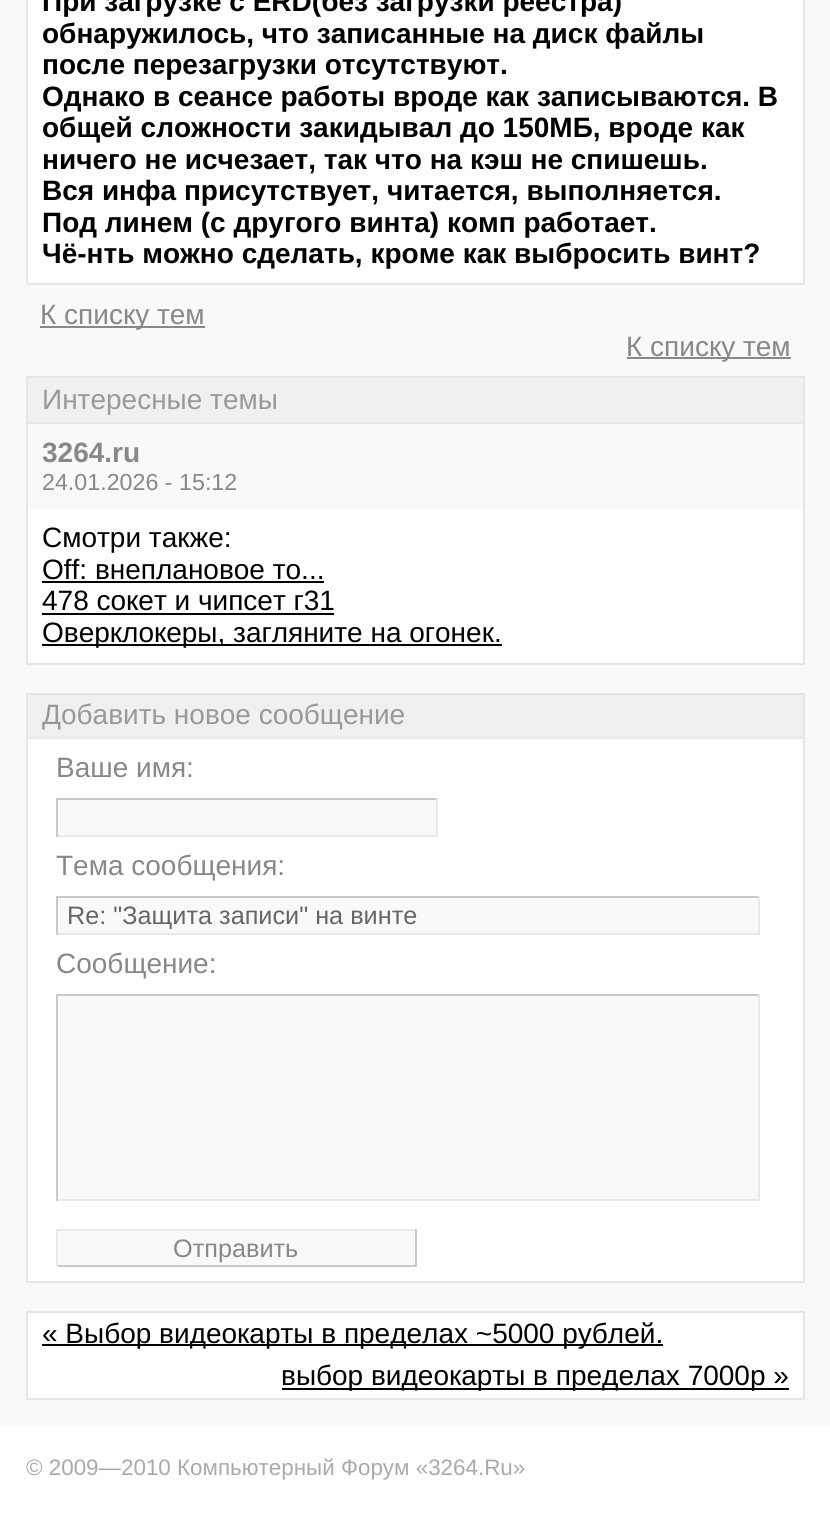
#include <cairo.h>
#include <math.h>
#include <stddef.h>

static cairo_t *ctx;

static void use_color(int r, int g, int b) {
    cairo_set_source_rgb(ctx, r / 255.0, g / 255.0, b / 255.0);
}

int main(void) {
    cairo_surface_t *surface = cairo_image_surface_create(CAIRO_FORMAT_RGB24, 830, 1526);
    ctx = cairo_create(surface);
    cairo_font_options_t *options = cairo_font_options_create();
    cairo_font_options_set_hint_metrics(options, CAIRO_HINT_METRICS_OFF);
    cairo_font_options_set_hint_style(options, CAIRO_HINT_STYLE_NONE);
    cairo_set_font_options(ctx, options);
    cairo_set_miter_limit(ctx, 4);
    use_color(255, 255, 255);
    cairo_paint(ctx);
    use_color(249, 249, 249);
    cairo_rectangle(ctx, 0, 0, 830, 1426);
    cairo_fill(ctx);
    use_color(255, 255, 255);
    cairo_rectangle(ctx, 27, -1, 777, 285);
    cairo_fill_preserve(ctx);
    use_color(230, 230, 230);
    cairo_stroke(ctx);
    cairo_select_font_face(ctx, "Liberation Sans", CAIRO_FONT_SLANT_NORMAL, CAIRO_FONT_WEIGHT_BOLD);
    cairo_set_font_size(ctx, 28);
    use_color(0, 0, 0);
    cairo_move_to(ctx, 42, 11);
    cairo_show_text(ctx, "При загрузке с ERD(без загрузки реестра)");
    cairo_move_to(ctx, 42, 43);
    cairo_show_text(ctx, "обнаружилось, что записанные на диск файлы");
    cairo_move_to(ctx, 42, 74);
    cairo_show_text(ctx, "после перезагрузки отсутствуют.");
    cairo_move_to(ctx, 42, 106);
    cairo_show_text(ctx, "Однако в сеансе работы вроде как записываются. В");
    cairo_move_to(ctx, 42, 137);
    cairo_show_text(ctx, "общей сложности закидывал до 150МБ, вроде как");
    cairo_move_to(ctx, 42, 169);
    cairo_show_text(ctx, "ничего не исчезает, так что на кэш не спишешь.");
    cairo_move_to(ctx, 42, 200);
    cairo_show_text(ctx, "Вся инфа присутствует, читается, выполняется.");
    cairo_move_to(ctx, 42, 232);
    cairo_show_text(ctx, "Под линем (с другого винта) комп работает.");
    cairo_move_to(ctx, 42, 263);
    cairo_show_text(ctx, "Чё-нть можно сделать, кроме как выбросить винт?");
    use_color(136, 136, 136);
    cairo_rectangle(ctx, 40, 326, 165, 2);
    cairo_fill(ctx);
    cairo_select_font_face(ctx, "Liberation Sans", CAIRO_FONT_SLANT_NORMAL, CAIRO_FONT_WEIGHT_NORMAL);
    cairo_move_to(ctx, 40, 324);
    cairo_show_text(ctx, "К списку тем");
    cairo_rectangle(ctx, 627, 357, 164, 2);
    cairo_fill(ctx);
    cairo_move_to(ctx, 626, 356);
    cairo_show_text(ctx, "К списку тем");
    use_color(255, 255, 255);
    cairo_rectangle(ctx, 28, 509, 775, 154);
    cairo_fill(ctx);
    cairo_rectangle(ctx, 27, 377, 777, 287);
    use_color(230, 230, 230);
    cairo_stroke(ctx);
    use_color(240, 240, 240);
    cairo_rectangle(ctx, 28, 378, 775, 44);
    cairo_fill(ctx);
    use_color(233, 233, 233);
    cairo_rectangle(ctx, 28, 422, 775, 2);
    cairo_fill(ctx);
    use_color(153, 153, 153);
    cairo_move_to(ctx, 42, 409);
    cairo_show_text(ctx, "Интересные темы");
    cairo_select_font_face(ctx, "Liberation Sans", CAIRO_FONT_SLANT_NORMAL, CAIRO_FONT_WEIGHT_BOLD);
    use_color(136, 136, 136);
    cairo_move_to(ctx, 42, 462);
    cairo_show_text(ctx, "3264.ru");
    cairo_select_font_face(ctx, "Liberation Sans", CAIRO_FONT_SLANT_NORMAL, CAIRO_FONT_WEIGHT_NORMAL);
    cairo_set_font_size(ctx, 23.25);
    cairo_move_to(ctx, 42, 490);
    cairo_show_text(ctx, "24.01.2026 - 15:12");
    cairo_set_font_size(ctx, 28);
    use_color(0, 0, 0);
    cairo_move_to(ctx, 42, 547);
    cairo_show_text(ctx, "Смотри также:");
    cairo_move_to(ctx, 42, 579);
    cairo_show_text(ctx, "Off: внеплановое то...");
    cairo_rectangle(ctx, 42, 581, 282, 2);
    cairo_fill(ctx);
    cairo_move_to(ctx, 42, 610);
    cairo_show_text(ctx, "478 сокет и чипсет г31");
    cairo_rectangle(ctx, 42, 613, 292, 2);
    cairo_fill(ctx);
    cairo_rectangle(ctx, 42, 644, 460, 2);
    cairo_fill(ctx);
    cairo_move_to(ctx, 42, 642);
    cairo_show_text(ctx, "Оверклокеры, загляните на огонек.");
    use_color(255, 255, 255);
    cairo_rectangle(ctx, 28, 739, 775, 542);
    cairo_fill(ctx);
    cairo_rectangle(ctx, 27, 694, 777, 588);
    use_color(230, 230, 230);
    cairo_stroke(ctx);
    use_color(240, 240, 240);
    cairo_rectangle(ctx, 28, 695, 775, 42);
    cairo_fill(ctx);
    use_color(233, 233, 233);
    cairo_rectangle(ctx, 28, 737, 775, 2);
    cairo_fill(ctx);
    use_color(153, 153, 153);
    cairo_move_to(ctx, 42, 724);
    cairo_show_text(ctx, "Добавить новое сообщение");
    use_color(136, 136, 136);
    cairo_move_to(ctx, 56, 777);
    cairo_show_text(ctx, "Ваше имя:");
    use_color(249, 249, 249);
    cairo_rectangle(ctx, 58, 800, 378, 35);
    cairo_fill(ctx);
    use_color(201, 201, 201);
    cairo_rectangle(ctx, 56, 798, 382, 2);
    cairo_fill(ctx);
    use_color(233, 233, 233);
    cairo_rectangle(ctx, 436, 798, 2, 39);
    cairo_fill(ctx);
    cairo_rectangle(ctx, 56, 835, 382, 2);
    cairo_fill(ctx);
    use_color(201, 201, 201);
    cairo_rectangle(ctx, 56, 798, 2, 39);
    cairo_fill(ctx);
    use_color(136, 136, 136);
    cairo_move_to(ctx, 56, 875);
    cairo_show_text(ctx, "Тема сообщения:");
    use_color(249, 249, 249);
    cairo_rectangle(ctx, 58, 898, 700, 35);
    cairo_fill(ctx);
    use_color(201, 201, 201);
    cairo_rectangle(ctx, 56, 896, 704, 2);
    cairo_fill(ctx);
    use_color(233, 233, 233);
    cairo_rectangle(ctx, 758, 896, 2, 39);
    cairo_fill(ctx);
    cairo_rectangle(ctx, 56, 933, 704, 2);
    cairo_fill(ctx);
    use_color(201, 201, 201);
    cairo_rectangle(ctx, 56, 896, 2, 39);
    cairo_fill(ctx);
    cairo_set_font_size(ctx, 25.25);
    use_color(102, 102, 102);
    cairo_move_to(ctx, 67, 924);
    cairo_show_text(ctx, "Re: \"Защита записи\" на винте");
    cairo_set_font_size(ctx, 28);
    use_color(136, 136, 136);
    cairo_move_to(ctx, 56, 973);
    cairo_show_text(ctx, "Сообщение:");
    use_color(249, 249, 249);
    cairo_rectangle(ctx, 58, 996, 700, 203);
    cairo_fill(ctx);
    use_color(201, 201, 201);
    cairo_rectangle(ctx, 56, 994, 704, 2);
    cairo_fill(ctx);
    use_color(233, 233, 233);
    cairo_rectangle(ctx, 758, 994, 2, 207);
    cairo_fill(ctx);
    cairo_rectangle(ctx, 56, 1199, 704, 2);
    cairo_fill(ctx);
    use_color(201, 201, 201);
    cairo_rectangle(ctx, 56, 994, 2, 207);
    cairo_fill(ctx);
    use_color(249, 249, 249);
    cairo_rectangle(ctx, 58, 1231, 357, 34);
    cairo_fill(ctx);
    use_color(233, 233, 233);
    cairo_rectangle(ctx, 56, 1229, 361, 2);
    cairo_fill(ctx);
    use_color(201, 201, 201);
    cairo_rectangle(ctx, 415, 1229, 2, 38);
    cairo_fill(ctx);
    cairo_rectangle(ctx, 56, 1265, 361, 2);
    cairo_fill(ctx);
    use_color(233, 233, 233);
    cairo_rectangle(ctx, 56, 1229, 2, 38);
    cairo_fill(ctx);
    cairo_set_font_size(ctx, 25.25);
    use_color(136, 136, 136);
    cairo_move_to(ctx, 173, 1257);
    cairo_show_text(ctx, "Отправить");
    cairo_rectangle(ctx, 27, 1312, 777, 87);
    use_color(230, 230, 230);
    cairo_stroke(ctx);
    use_color(255, 255, 255);
    cairo_rectangle(ctx, 28, 1313, 775, 85);
    cairo_fill(ctx);
    use_color(0, 0, 0);
    cairo_rectangle(ctx, 42, 1344, 621, 2);
    cairo_fill(ctx);
    cairo_set_font_size(ctx, 28);
    cairo_move_to(ctx, 42, 1343);
    cairo_show_text(ctx, "« Выбор видеокарты в пределах ~5000 рублей.");
    cairo_rectangle(ctx, 282, 1388, 507, 2);
    cairo_fill(ctx);
    cairo_move_to(ctx, 281, 1385);
    cairo_show_text(ctx, "выбор видеокарты в пределах 7000р »");
    cairo_set_font_size(ctx, 22.4);
    use_color(170, 170, 170);
    cairo_move_to(ctx, 26, 1475);
    cairo_show_text(ctx, "© 2009—2010 Компьютерный Форум «3264.Ru»");
    cairo_surface_write_to_png(surface, "result.png");
    cairo_font_options_destroy(options);
    cairo_destroy(ctx);
    cairo_surface_destroy(surface);
    return 0;
}
